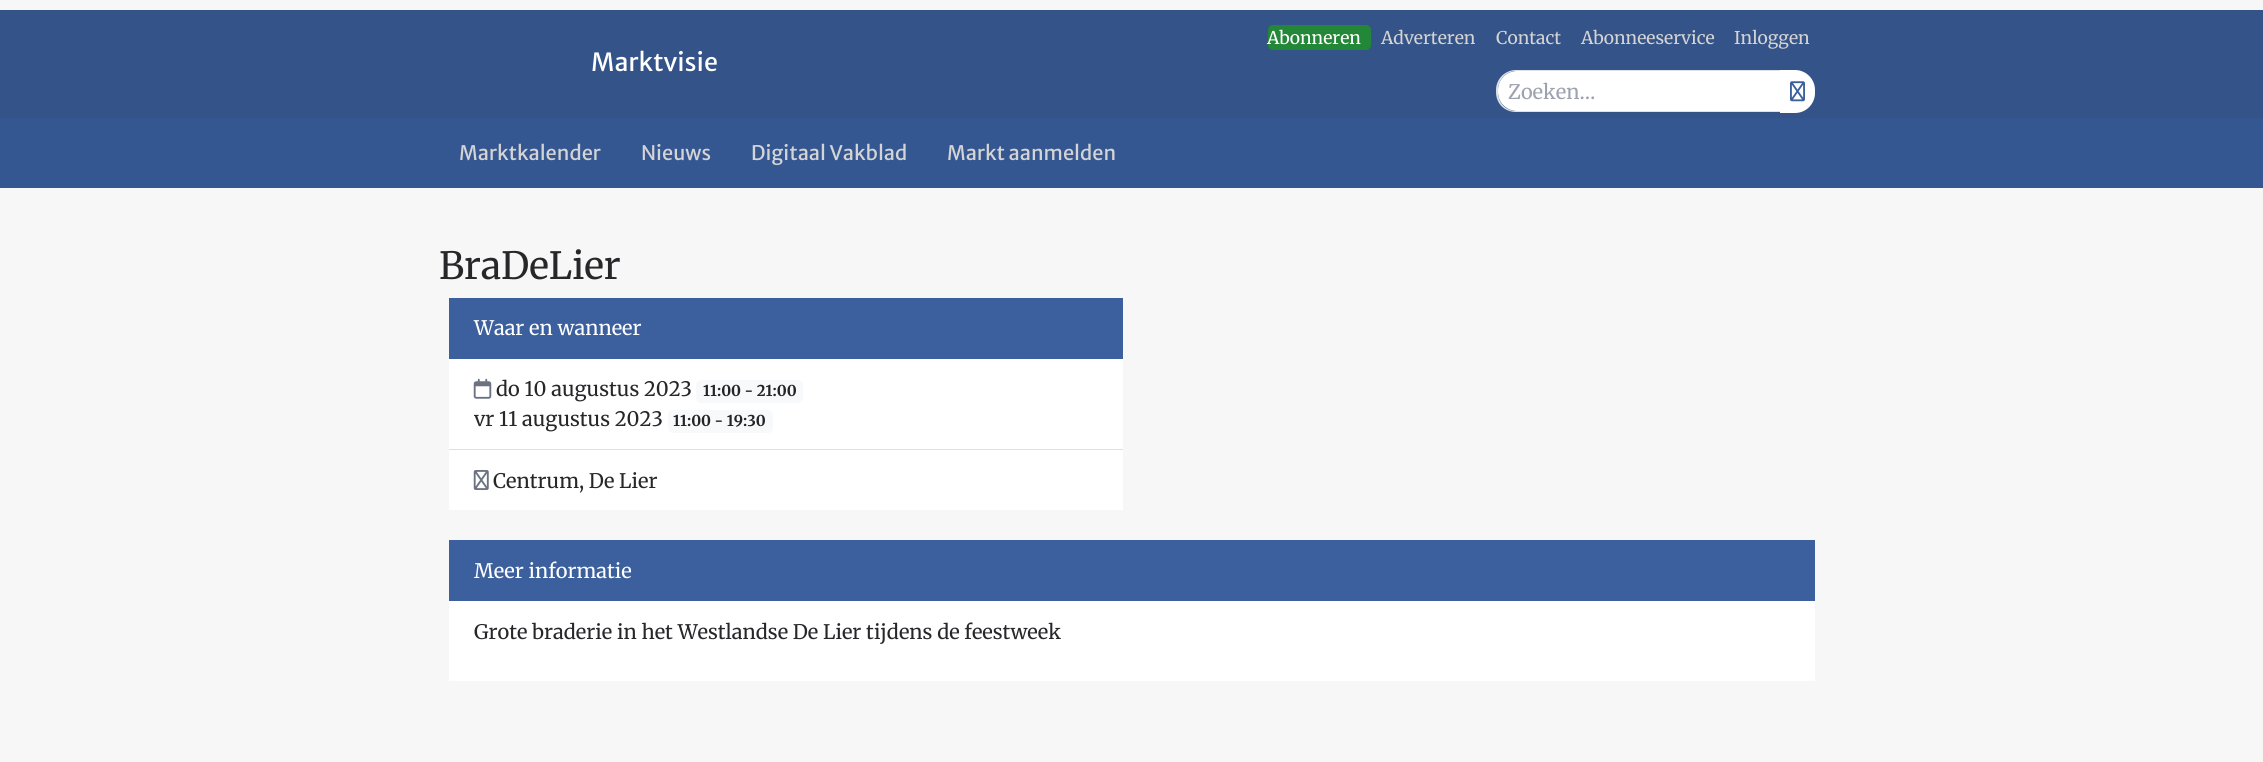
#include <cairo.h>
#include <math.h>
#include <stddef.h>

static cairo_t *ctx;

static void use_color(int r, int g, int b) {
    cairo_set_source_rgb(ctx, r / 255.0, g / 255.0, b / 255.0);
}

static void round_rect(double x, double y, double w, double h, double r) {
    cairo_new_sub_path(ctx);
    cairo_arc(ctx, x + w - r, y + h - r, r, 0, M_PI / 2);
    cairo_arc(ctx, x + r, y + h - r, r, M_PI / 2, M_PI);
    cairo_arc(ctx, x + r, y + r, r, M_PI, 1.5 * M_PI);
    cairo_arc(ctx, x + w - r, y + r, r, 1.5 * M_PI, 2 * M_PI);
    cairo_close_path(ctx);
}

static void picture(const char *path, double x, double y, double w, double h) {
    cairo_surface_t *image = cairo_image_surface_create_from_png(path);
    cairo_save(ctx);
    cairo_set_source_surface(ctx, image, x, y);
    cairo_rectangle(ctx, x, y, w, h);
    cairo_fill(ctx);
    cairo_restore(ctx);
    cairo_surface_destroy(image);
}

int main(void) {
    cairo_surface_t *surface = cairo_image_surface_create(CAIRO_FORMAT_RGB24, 2263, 762);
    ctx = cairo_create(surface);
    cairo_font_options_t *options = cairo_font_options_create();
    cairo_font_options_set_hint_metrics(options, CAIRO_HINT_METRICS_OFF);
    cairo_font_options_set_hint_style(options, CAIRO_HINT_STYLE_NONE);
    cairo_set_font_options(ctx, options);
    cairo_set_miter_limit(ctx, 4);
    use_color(247, 247, 247);
    cairo_paint(ctx);
    use_color(52, 83, 136);
    cairo_rectangle(ctx, 0, 10, 2263, 108);
    cairo_fill(ctx);
    cairo_select_font_face(ctx, "Merriweather Sans", CAIRO_FONT_SLANT_NORMAL, CAIRO_FONT_WEIGHT_NORMAL);
    cairo_set_font_size(ctx, 25);
    use_color(255, 255, 255);
    cairo_move_to(ctx, 591, 71);
    cairo_show_text(ctx, "Marktvisie");
    use_color(34, 135, 54);
    round_rect(1268, 25, 103, 25, 5);
    cairo_fill(ctx);
    cairo_select_font_face(ctx, "Merriweather", CAIRO_FONT_SLANT_NORMAL, CAIRO_FONT_WEIGHT_NORMAL);
    cairo_set_font_size(ctx, 17.5);
    use_color(255, 255, 255);
    cairo_move_to(ctx, 1267, 44);
    cairo_show_text(ctx, "Abonneren");
    use_color(212, 212, 212);
    cairo_move_to(ctx, 1381, 44);
    cairo_show_text(ctx, "Adverteren");
    cairo_move_to(ctx, 1496, 44);
    cairo_show_text(ctx, "Contact");
    cairo_move_to(ctx, 1581, 44);
    cairo_show_text(ctx, "Abonneeservice");
    cairo_move_to(ctx, 1734, 44);
    cairo_show_text(ctx, "Inloggen");
    use_color(255, 255, 255);
    cairo_new_path(ctx);
    cairo_move_to(ctx, 1517, 71);
    cairo_line_to(ctx, 1780, 71);
    cairo_line_to(ctx, 1780, 111);
    cairo_line_to(ctx, 1517, 111);
    cairo_curve_to(ctx, 1506.5, 111, 1498, 102.5, 1498, 92);
    cairo_line_to(ctx, 1498, 90);
    cairo_curve_to(ctx, 1498, 79.5, 1506.5, 71, 1517, 71);
    cairo_close_path(ctx);
    cairo_fill(ctx);
    use_color(222, 226, 230);
    cairo_set_fill_rule(ctx, CAIRO_FILL_RULE_EVEN_ODD);
    cairo_new_path(ctx);
    cairo_move_to(ctx, 1516, 70);
    cairo_line_to(ctx, 1780, 70);
    cairo_line_to(ctx, 1780, 112);
    cairo_line_to(ctx, 1516, 112);
    cairo_curve_to(ctx, 1505, 112, 1496, 104, 1496, 92);
    cairo_line_to(ctx, 1496, 90);
    cairo_curve_to(ctx, 1496, 79, 1505, 70, 1516, 70);
    cairo_close_path(ctx);
    cairo_move_to(ctx, 1516, 71);
    cairo_line_to(ctx, 1780, 71);
    cairo_line_to(ctx, 1780, 111);
    cairo_line_to(ctx, 1516, 111);
    cairo_curve_to(ctx, 1506, 111, 1498, 103, 1498, 92);
    cairo_line_to(ctx, 1498, 90);
    cairo_curve_to(ctx, 1498, 80, 1506, 71, 1516, 71);
    cairo_close_path(ctx);
    cairo_fill(ctx);
    cairo_set_font_size(ctx, 20);
    use_color(156, 163, 175);
    cairo_move_to(ctx, 1508, 99);
    cairo_show_text(ctx, "Zoeken…");
    use_color(255, 255, 255);
    cairo_new_path(ctx);
    cairo_move_to(ctx, 1780, 70);
    cairo_line_to(ctx, 1795, 70);
    cairo_curve_to(ctx, 1806, 70, 1815, 79, 1815, 90);
    cairo_line_to(ctx, 1815, 93);
    cairo_curve_to(ctx, 1815, 104, 1806, 113, 1795, 113);
    cairo_line_to(ctx, 1780, 113);
    cairo_close_path(ctx);
    cairo_fill(ctx);
    picture("img1.png", 1790, 81, 15, 21);
    use_color(52, 87, 146);
    cairo_rectangle(ctx, 0, 118, 2263, 70);
    cairo_fill(ctx);
    cairo_select_font_face(ctx, "Merriweather Sans", CAIRO_FONT_SLANT_NORMAL, CAIRO_FONT_WEIGHT_NORMAL);
    use_color(212, 212, 212);
    cairo_move_to(ctx, 459, 160);
    cairo_show_text(ctx, "Marktkalender");
    cairo_move_to(ctx, 641, 160);
    cairo_show_text(ctx, "Nieuws");
    cairo_move_to(ctx, 751, 160);
    cairo_show_text(ctx, "Digitaal Vakblad");
    cairo_move_to(ctx, 947, 160);
    cairo_show_text(ctx, "Markt aanmelden");
    cairo_select_font_face(ctx, "Merriweather", CAIRO_FONT_SLANT_NORMAL, CAIRO_FONT_WEIGHT_NORMAL);
    cairo_set_font_size(ctx, 37.5);
    use_color(39, 39, 42);
    cairo_move_to(ctx, 439, 279);
    cairo_show_text(ctx, "BraDeLier");
    use_color(60, 96, 158);
    cairo_rectangle(ctx, 449, 298, 674, 61);
    cairo_fill(ctx);
    cairo_set_font_size(ctx, 20);
    use_color(255, 255, 255);
    cairo_move_to(ctx, 474, 335);
    cairo_show_text(ctx, "Waar en wanneer");
    cairo_rectangle(ctx, 449, 359, 674, 90);
    cairo_fill(ctx);
    picture("img2.png", 473, 378, 19, 21);
    use_color(39, 39, 42);
    cairo_move_to(ctx, 496, 396);
    cairo_show_text(ctx, "do 10 augustus 2023");
    use_color(248, 249, 250);
    round_rect(696, 380, 107, 23, 5);
    cairo_fill(ctx);
    cairo_select_font_face(ctx, "Merriweather", CAIRO_FONT_SLANT_NORMAL, CAIRO_FONT_WEIGHT_BOLD);
    cairo_set_font_size(ctx, 15);
    use_color(33, 37, 41);
    cairo_move_to(ctx, 703, 396);
    cairo_show_text(ctx, "11:00 - 21:00");
    cairo_select_font_face(ctx, "Merriweather", CAIRO_FONT_SLANT_NORMAL, CAIRO_FONT_WEIGHT_NORMAL);
    cairo_set_font_size(ctx, 20);
    use_color(39, 39, 42);
    cairo_move_to(ctx, 474, 426);
    cairo_show_text(ctx, "vr 11 augustus 2023");
    use_color(248, 249, 250);
    round_rect(668, 410, 105, 23, 5);
    cairo_fill(ctx);
    cairo_select_font_face(ctx, "Merriweather", CAIRO_FONT_SLANT_NORMAL, CAIRO_FONT_WEIGHT_BOLD);
    cairo_set_font_size(ctx, 15);
    use_color(33, 37, 41);
    cairo_move_to(ctx, 673, 426);
    cairo_show_text(ctx, "11:00 - 19:30");
    use_color(255, 255, 255);
    cairo_rectangle(ctx, 449, 450, 674, 60);
    cairo_fill(ctx);
    use_color(223, 223, 223);
    cairo_rectangle(ctx, 449, 449, 674, 1);
    cairo_fill(ctx);
    picture("img3.png", 473, 470, 16, 20);
    cairo_select_font_face(ctx, "Merriweather", CAIRO_FONT_SLANT_NORMAL, CAIRO_FONT_WEIGHT_NORMAL);
    cairo_set_font_size(ctx, 20);
    use_color(39, 39, 42);
    cairo_move_to(ctx, 493, 488);
    cairo_show_text(ctx, "Centrum, De Lier");
    use_color(60, 96, 158);
    cairo_rectangle(ctx, 449, 540, 1366, 61);
    cairo_fill(ctx);
    use_color(255, 255, 255);
    cairo_move_to(ctx, 474, 578);
    cairo_show_text(ctx, "Meer informatie");
    cairo_rectangle(ctx, 449, 601, 1366, 80);
    cairo_fill(ctx);
    use_color(39, 39, 42);
    cairo_move_to(ctx, 474, 639);
    cairo_show_text(ctx, "Grote braderie in het Westlandse De Lier tijdens de feestweek");
    cairo_surface_write_to_png(surface, "result.png");
    cairo_font_options_destroy(options);
    cairo_destroy(ctx);
    cairo_surface_destroy(surface);
    return 0;
}
